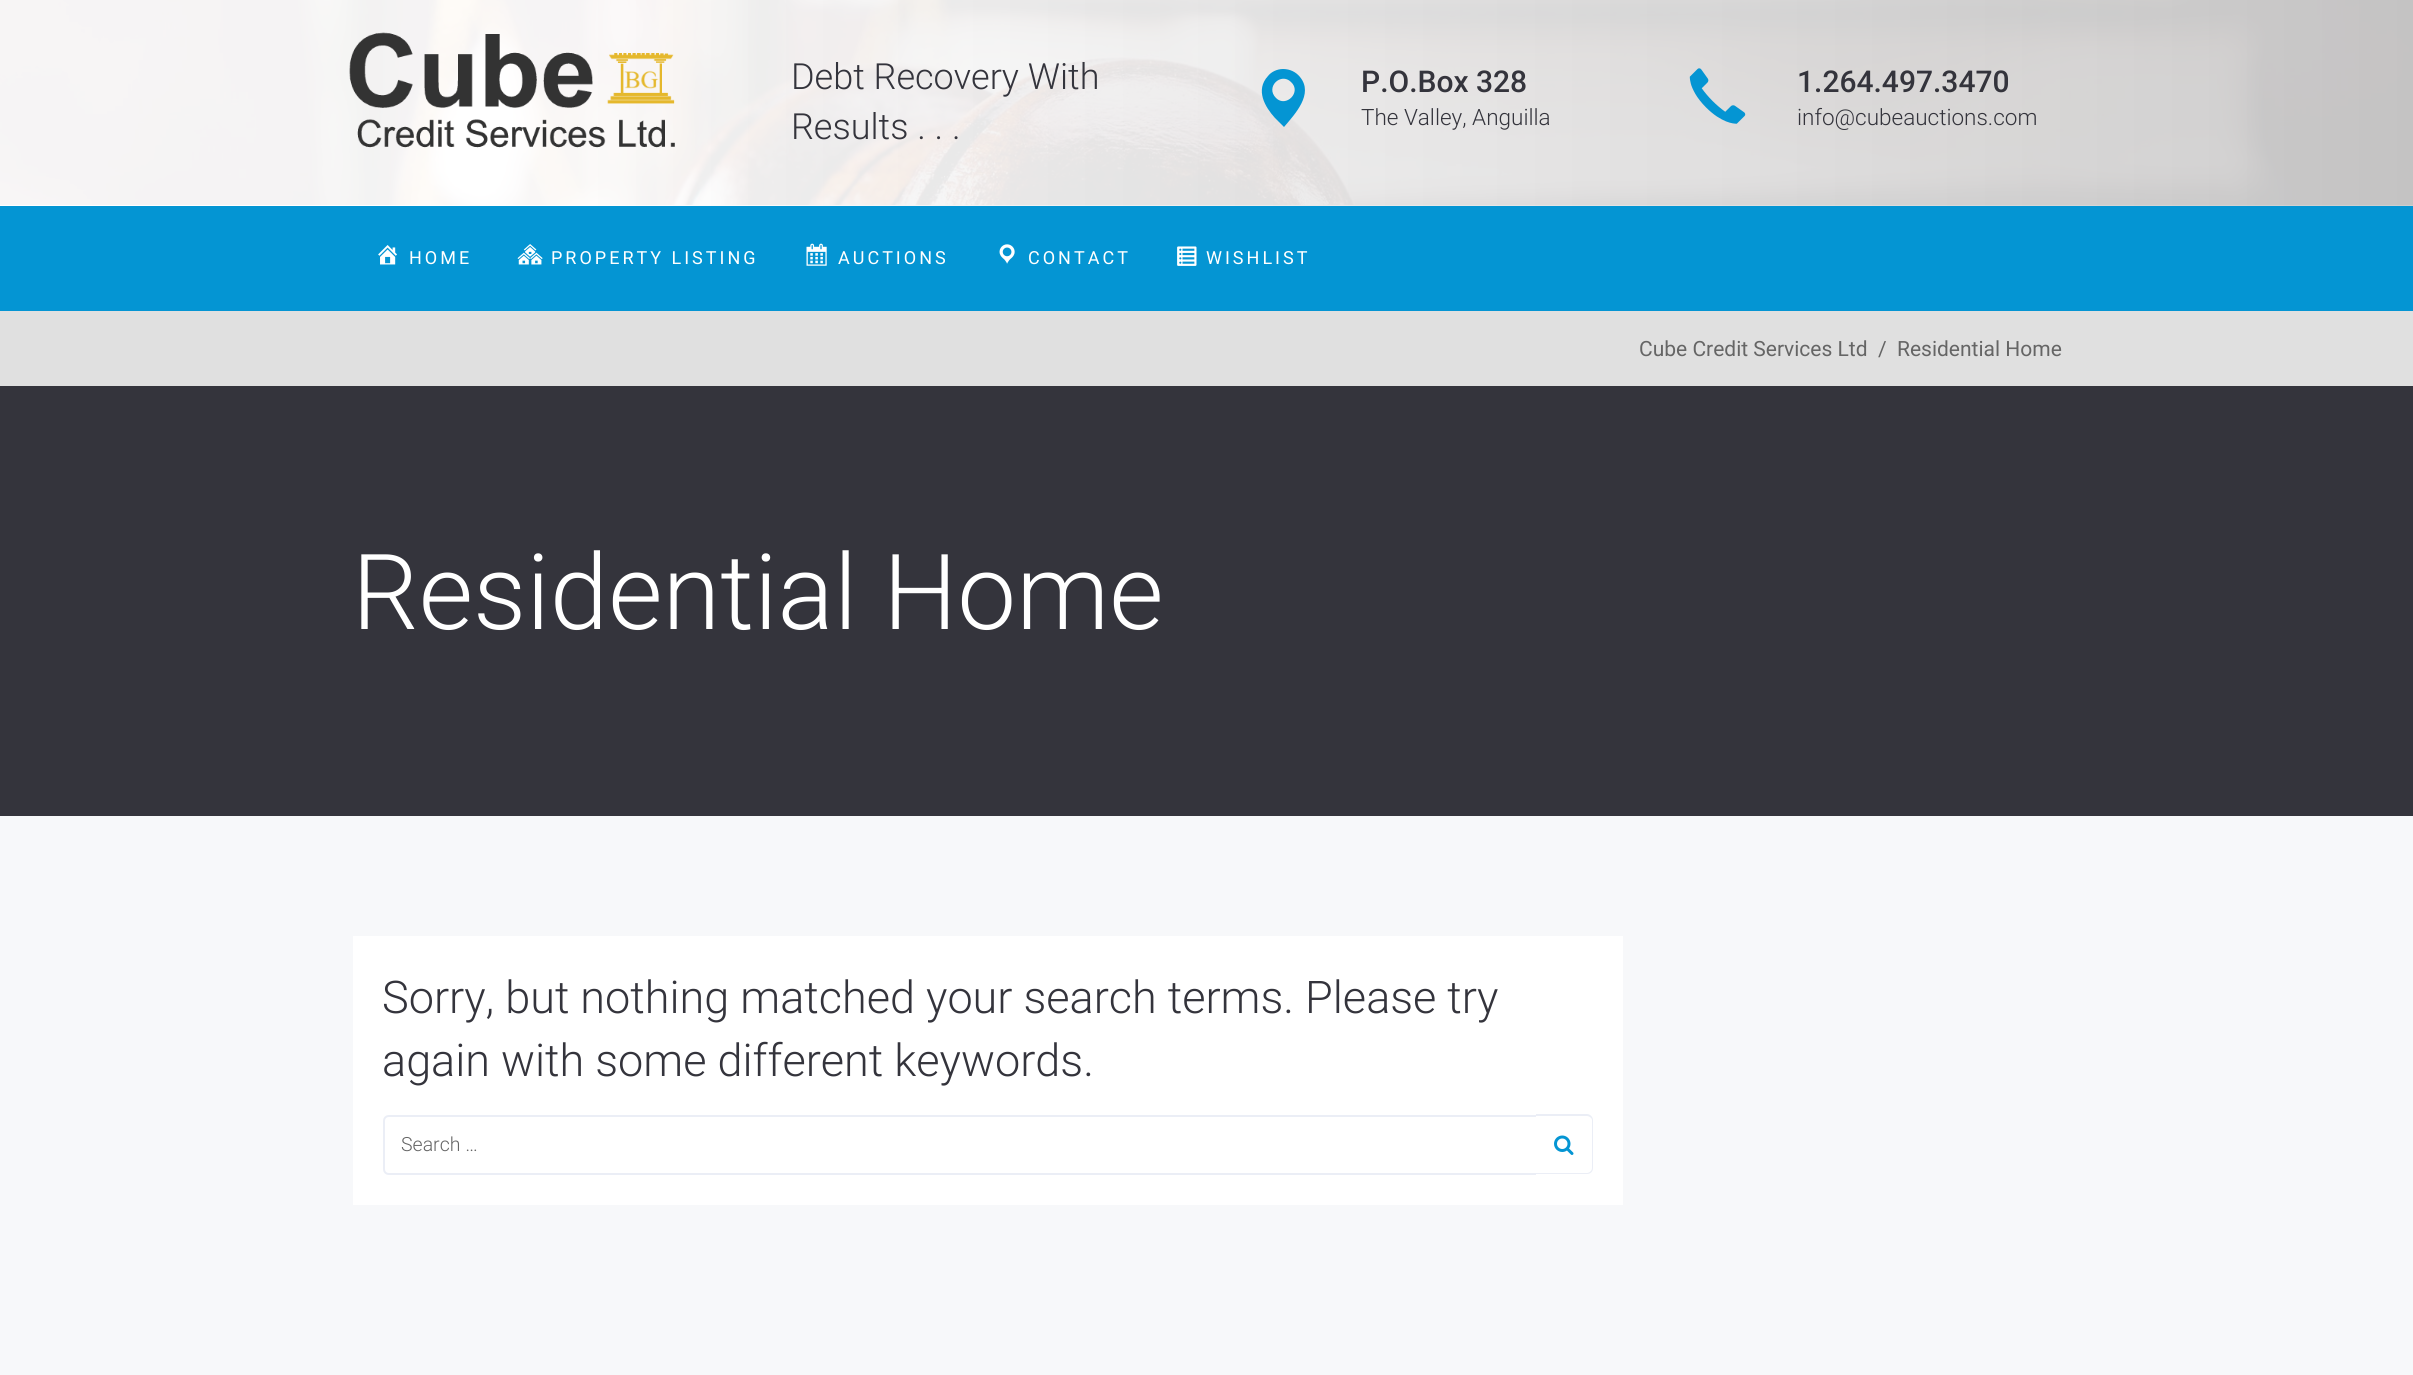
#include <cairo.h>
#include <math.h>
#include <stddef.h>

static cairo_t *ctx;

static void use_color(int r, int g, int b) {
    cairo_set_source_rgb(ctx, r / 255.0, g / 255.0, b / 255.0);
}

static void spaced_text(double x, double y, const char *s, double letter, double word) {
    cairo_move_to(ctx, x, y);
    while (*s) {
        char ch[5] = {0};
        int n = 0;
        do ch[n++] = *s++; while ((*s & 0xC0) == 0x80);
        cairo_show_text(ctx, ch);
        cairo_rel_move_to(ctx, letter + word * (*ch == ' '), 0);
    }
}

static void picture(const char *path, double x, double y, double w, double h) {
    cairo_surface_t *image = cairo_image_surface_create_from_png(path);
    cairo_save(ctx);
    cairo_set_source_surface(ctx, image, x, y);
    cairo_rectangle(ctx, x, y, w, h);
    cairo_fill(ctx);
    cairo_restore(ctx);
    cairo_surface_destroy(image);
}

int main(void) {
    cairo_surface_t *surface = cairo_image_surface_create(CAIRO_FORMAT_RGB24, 2413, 1375);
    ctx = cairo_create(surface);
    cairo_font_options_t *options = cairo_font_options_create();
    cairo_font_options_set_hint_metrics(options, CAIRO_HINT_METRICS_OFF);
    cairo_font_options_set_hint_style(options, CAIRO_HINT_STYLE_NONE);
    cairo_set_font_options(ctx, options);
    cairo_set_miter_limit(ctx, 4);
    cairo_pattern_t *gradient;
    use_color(247, 248, 250);
    cairo_paint(ctx);
    gradient = cairo_pattern_create_linear(0, 103, 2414, 103);
    cairo_pattern_add_color_stop_rgba(gradient, 0, 1, 1, 1, 1);
    cairo_pattern_add_color_stop_rgba(gradient, 0.24, 1, 1, 1, 1);
    cairo_pattern_add_color_stop_rgba(gradient, 1, 0.808, 0.808, 0.808, 1);
    cairo_set_source(ctx, gradient);
    cairo_pattern_destroy(gradient);
    cairo_rectangle(ctx, 0, 0, 2413, 206);
    cairo_fill(ctx);
    picture("img1.png", 0, 0, 2413, 205);
    picture("img2.png", 349, 32, 326, 116);
    cairo_select_font_face(ctx, "Roboto Light", CAIRO_FONT_SLANT_NORMAL, CAIRO_FONT_WEIGHT_NORMAL);
    cairo_set_font_size(ctx, 36);
    use_color(52, 52, 60);
    cairo_move_to(ctx, 791, 89);
    cairo_show_text(ctx, "Debt Recovery With");
    cairo_move_to(ctx, 791, 139);
    cairo_show_text(ctx, "Results . . .");
    use_color(4, 149, 211);
    cairo_new_path(ctx);
    cairo_move_to(ctx, 1283, 69);
    cairo_curve_to(ctx, 1290, 69, 1296, 72, 1300, 77);
    cairo_curve_to(ctx, 1314, 94, 1295, 114, 1284, 127);
    cairo_line_to(ctx, 1275, 118);
    cairo_curve_to(ctx, 1265, 107, 1255, 90, 1268, 76);
    cairo_curve_to(ctx, 1271, 72, 1277, 69, 1283, 69);
    cairo_close_path(ctx);
    cairo_move_to(ctx, 1291, 82);
    cairo_curve_to(ctx, 1281, 72, 1265, 87, 1276, 98);
    cairo_curve_to(ctx, 1286, 108, 1302, 92, 1291, 82);
    cairo_close_path(ctx);
    cairo_fill(ctx);
    cairo_select_font_face(ctx, "Roboto Medium", CAIRO_FONT_SLANT_NORMAL, CAIRO_FONT_WEIGHT_NORMAL);
    cairo_set_font_size(ctx, 30);
    use_color(52, 52, 60);
    cairo_move_to(ctx, 1361, 92);
    cairo_show_text(ctx, "P.O.Box 328");
    cairo_select_font_face(ctx, "Roboto Light", CAIRO_FONT_SLANT_NORMAL, CAIRO_FONT_WEIGHT_NORMAL);
    cairo_set_font_size(ctx, 22.5);
    cairo_move_to(ctx, 1361, 125);
    cairo_show_text(ctx, "The Valley, Anguilla");
    picture("img3.png", 1689, 68, 57, 56);
    cairo_select_font_face(ctx, "Roboto Medium", CAIRO_FONT_SLANT_NORMAL, CAIRO_FONT_WEIGHT_NORMAL);
    cairo_set_font_size(ctx, 30);
    cairo_move_to(ctx, 1797, 92);
    cairo_show_text(ctx, "1.264.497.3470");
    cairo_select_font_face(ctx, "Roboto Light", CAIRO_FONT_SLANT_NORMAL, CAIRO_FONT_WEIGHT_NORMAL);
    cairo_set_font_size(ctx, 22.5);
    cairo_move_to(ctx, 1797, 125);
    cairo_show_text(ctx, "info@cubeauctions.com");
    use_color(4, 149, 211);
    cairo_rectangle(ctx, 0, 206, 2413, 105);
    cairo_fill(ctx);
    picture("img4.png", 378, 245, 19, 20);
    cairo_select_font_face(ctx, "Roboto", CAIRO_FONT_SLANT_NORMAL, CAIRO_FONT_WEIGHT_NORMAL);
    cairo_set_font_size(ctx, 18);
    use_color(255, 255, 255);
    spaced_text(409, 264, "HOME", 3, 0);
    picture("img5.png", 517, 244, 26, 21);
    spaced_text(551, 264, "PROPERTY LISTING", 3, 0);
    picture("img6.png", 806, 243, 21, 23);
    spaced_text(838, 264, "AUCTIONS", 3, 0);
    picture("img7.png", 999, 244, 16, 20);
    spaced_text(1028, 264, "CONTACT", 3, 0);
    picture("img8.png", 1177, 246, 20, 20);
    spaced_text(1206, 264, "WISHLIST", 3, 0);
    use_color(224, 224, 224);
    cairo_rectangle(ctx, 0, 311, 2413, 75);
    cairo_fill(ctx);
    cairo_set_font_size(ctx, 21);
    use_color(101, 101, 101);
    cairo_move_to(ctx, 1639, 356);
    cairo_show_text(ctx, "Cube Credit Services Ltd");
    cairo_move_to(ctx, 1878, 356);
    cairo_show_text(ctx, "/");
    cairo_move_to(ctx, 1897, 356);
    cairo_show_text(ctx, "Residential Home");
    use_color(52, 52, 60);
    cairo_rectangle(ctx, 0, 386, 2413, 430);
    cairo_fill(ctx);
    cairo_select_font_face(ctx, "Roboto Light", CAIRO_FONT_SLANT_NORMAL, CAIRO_FONT_WEIGHT_NORMAL);
    cairo_set_font_size(ctx, 105);
    use_color(255, 255, 255);
    cairo_move_to(ctx, 352, 629);
    cairo_show_text(ctx, "Residential Home");
    cairo_rectangle(ctx, 353, 936, 1270, 269);
    cairo_fill(ctx);
    cairo_set_font_size(ctx, 45);
    use_color(52, 52, 60);
    cairo_move_to(ctx, 382, 1013);
    cairo_show_text(ctx, "Sorry, but nothing matched your search terms. Please try");
    cairo_move_to(ctx, 382, 1076);
    cairo_show_text(ctx, "again with some different keywords.");
    cairo_new_path(ctx);
    cairo_move_to(ctx, 389, 1116);
    cairo_line_to(ctx, 1537, 1116);
    cairo_line_to(ctx, 1537, 1174);
    cairo_line_to(ctx, 389, 1174);
    cairo_curve_to(ctx, 386, 1174, 384, 1172, 384, 1169);
    cairo_line_to(ctx, 384, 1121);
    cairo_curve_to(ctx, 384, 1118, 386, 1116, 389, 1116);
    cairo_close_path(ctx);
    use_color(235, 238, 246);
    cairo_stroke(ctx);
    cairo_set_font_size(ctx, 19.5);
    use_color(101, 101, 101);
    cairo_move_to(ctx, 401, 1151);
    cairo_show_text(ctx, "Search …");
    use_color(255, 255, 255);
    cairo_new_path(ctx);
    cairo_move_to(ctx, 1536, 1115);
    cairo_line_to(ctx, 1587, 1115);
    cairo_curve_to(ctx, 1590.5, 1115, 1593, 1117.5, 1593, 1121);
    cairo_line_to(ctx, 1593, 1169);
    cairo_curve_to(ctx, 1593, 1172.5, 1590.5, 1175, 1587, 1175);
    cairo_line_to(ctx, 1536, 1175);
    cairo_close_path(ctx);
    cairo_fill(ctx);
    use_color(235, 238, 246);
    cairo_set_fill_rule(ctx, CAIRO_FILL_RULE_EVEN_ODD);
    cairo_new_path(ctx);
    cairo_move_to(ctx, 1536, 1114);
    cairo_line_to(ctx, 1587, 1114);
    cairo_curve_to(ctx, 1590, 1114, 1593, 1117, 1593, 1120);
    cairo_line_to(ctx, 1593, 1168);
    cairo_curve_to(ctx, 1593, 1172, 1590, 1174, 1587, 1174);
    cairo_line_to(ctx, 1536, 1174);
    cairo_close_path(ctx);
    cairo_move_to(ctx, 1536, 1116);
    cairo_line_to(ctx, 1587, 1116);
    cairo_curve_to(ctx, 1589, 1116, 1592, 1118, 1592, 1120);
    cairo_line_to(ctx, 1592, 1168);
    cairo_curve_to(ctx, 1592, 1171, 1589, 1173, 1587, 1173);
    cairo_line_to(ctx, 1536, 1173);
    cairo_close_path(ctx);
    cairo_fill(ctx);
    picture("img9.png", 1554, 1135, 20, 20);
    cairo_surface_write_to_png(surface, "result.png");
    cairo_font_options_destroy(options);
    cairo_destroy(ctx);
    cairo_surface_destroy(surface);
    return 0;
}
